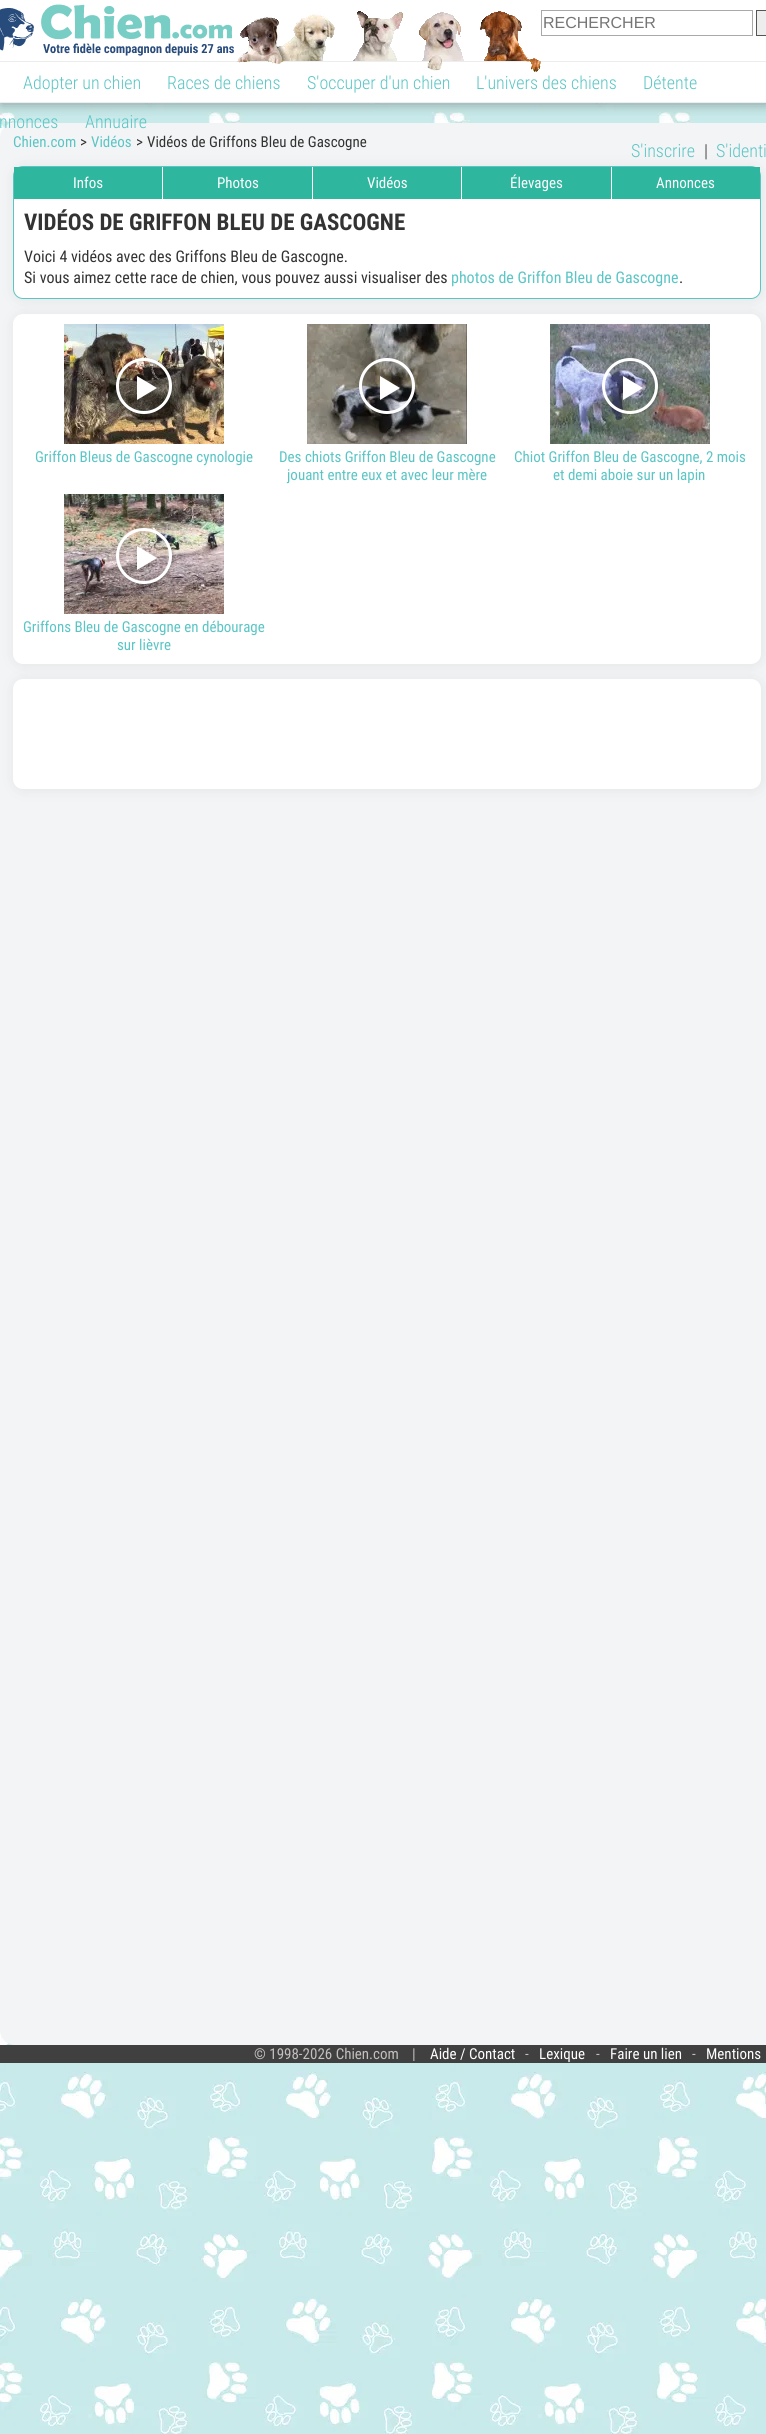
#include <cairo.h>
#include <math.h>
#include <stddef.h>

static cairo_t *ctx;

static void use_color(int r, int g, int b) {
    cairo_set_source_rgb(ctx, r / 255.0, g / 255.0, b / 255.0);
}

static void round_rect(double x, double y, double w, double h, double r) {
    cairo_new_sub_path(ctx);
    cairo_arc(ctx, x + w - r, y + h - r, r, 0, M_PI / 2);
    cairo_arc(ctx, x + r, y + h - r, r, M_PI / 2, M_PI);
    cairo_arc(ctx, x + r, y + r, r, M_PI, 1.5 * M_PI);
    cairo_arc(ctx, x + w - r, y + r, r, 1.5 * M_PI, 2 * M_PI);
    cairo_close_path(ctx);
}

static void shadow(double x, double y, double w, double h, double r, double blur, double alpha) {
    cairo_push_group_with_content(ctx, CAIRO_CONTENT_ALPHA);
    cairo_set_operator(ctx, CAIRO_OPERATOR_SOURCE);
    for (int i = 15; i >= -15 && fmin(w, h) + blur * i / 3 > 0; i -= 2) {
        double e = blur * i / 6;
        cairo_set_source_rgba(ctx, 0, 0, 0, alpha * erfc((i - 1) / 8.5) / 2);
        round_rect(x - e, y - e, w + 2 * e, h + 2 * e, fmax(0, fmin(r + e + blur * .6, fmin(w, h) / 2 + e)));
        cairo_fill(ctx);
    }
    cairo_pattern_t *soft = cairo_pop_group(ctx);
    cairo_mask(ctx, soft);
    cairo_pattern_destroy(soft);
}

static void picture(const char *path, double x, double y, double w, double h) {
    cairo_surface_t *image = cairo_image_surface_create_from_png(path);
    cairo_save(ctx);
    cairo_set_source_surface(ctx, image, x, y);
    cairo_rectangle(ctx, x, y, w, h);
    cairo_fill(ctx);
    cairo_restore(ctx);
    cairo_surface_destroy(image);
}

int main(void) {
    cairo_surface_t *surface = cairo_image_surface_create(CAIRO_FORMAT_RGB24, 766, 2434);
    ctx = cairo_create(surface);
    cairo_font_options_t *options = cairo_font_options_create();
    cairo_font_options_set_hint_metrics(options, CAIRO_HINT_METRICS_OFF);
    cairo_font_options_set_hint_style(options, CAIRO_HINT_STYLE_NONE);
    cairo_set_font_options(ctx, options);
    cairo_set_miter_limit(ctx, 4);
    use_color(255, 255, 255);
    cairo_paint(ctx);
    picture("img1.png", 0, 103, 766, 2331);
    use_color(72, 72, 72);
    shadow(1, 1, 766, 103, 0, 6.5, 0.5);
    use_color(255, 255, 255);
    cairo_rectangle(ctx, 0, 0, 766, 102);
    cairo_fill(ctx);
    use_color(236, 237, 237);
    cairo_rectangle(ctx, 0, 102, 766, 1);
    cairo_fill(ctx);
    picture("img2.png", 0, 4, 234, 52);
    cairo_rectangle(ctx, 0, 61, 766, 1);
    cairo_fill(ctx);
    picture("img3.png", 237, 11, 304, 61);
    cairo_rectangle(ctx, 541.5, 10.5, 211, 25);
    use_color(169, 169, 169);
    cairo_set_line_width(ctx, 1);
    cairo_stroke(ctx);
    cairo_select_font_face(ctx, "Liberation Sans", CAIRO_FONT_SLANT_NORMAL, CAIRO_FONT_WEIGHT_NORMAL);
    cairo_set_font_size(ctx, 16);
    use_color(117, 117, 117);
    cairo_move_to(ctx, 543, 28);
    cairo_show_text(ctx, "RECHERCHER");
    use_color(237, 237, 237);
    cairo_rectangle(ctx, 756.5, 10.5, 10, 25);
    cairo_fill_preserve(ctx);
    use_color(88, 84, 82);
    cairo_stroke(ctx);
    cairo_select_font_face(ctx, "Roboto Light", CAIRO_FONT_SLANT_NORMAL, CAIRO_FONT_WEIGHT_NORMAL);
    cairo_set_font_size(ctx, 18);
    use_color(91, 197, 197);
    cairo_move_to(ctx, 23, 89);
    cairo_show_text(ctx, "Adopter un chien");
    cairo_move_to(ctx, 167, 89);
    cairo_show_text(ctx, "Races de chiens");
    cairo_move_to(ctx, 307, 89);
    cairo_show_text(ctx, "S'occuper d'un chien");
    cairo_move_to(ctx, 476, 89);
    cairo_show_text(ctx, "L'univers des chiens");
    cairo_move_to(ctx, 643, 89);
    cairo_show_text(ctx, "Détente");
    use_color(243, 244, 245);
    round_rect(0, 123, 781, 1922, 15);
    cairo_fill(ctx);
    use_color(91, 197, 197);
    cairo_move_to(ctx, -1, 128);
    cairo_show_text(ctx, "nnonces");
    cairo_move_to(ctx, 85, 128);
    cairo_show_text(ctx, "Annuaire");
    cairo_move_to(ctx, 631, 157);
    cairo_show_text(ctx, "S'inscrire");
    use_color(51, 51, 51);
    cairo_move_to(ctx, 704, 157);
    cairo_show_text(ctx, "|");
    use_color(91, 197, 197);
    cairo_move_to(ctx, 716, 157);
    cairo_show_text(ctx, "S'identi");
    use_color(72, 72, 72);
    shadow(14, 167, 748, 133, 10, 6.5, 0.1);
    cairo_select_font_face(ctx, "Roboto Condensed", CAIRO_FONT_SLANT_NORMAL, CAIRO_FONT_WEIGHT_NORMAL);
    cairo_set_font_size(ctx, 15);
    use_color(91, 197, 197);
    cairo_move_to(ctx, 13, 147);
    cairo_show_text(ctx, "Chien.com");
    use_color(51, 51, 51);
    cairo_move_to(ctx, 80, 147);
    cairo_show_text(ctx, ">");
    use_color(91, 197, 197);
    cairo_move_to(ctx, 91, 147);
    cairo_show_text(ctx, "Vidéos");
    use_color(51, 51, 51);
    cairo_move_to(ctx, 136, 147);
    cairo_show_text(ctx, ">");
    cairo_move_to(ctx, 147, 147);
    cairo_show_text(ctx, "Vidéos de Griffons Bleu de Gascogne");
    use_color(255, 255, 255);
    round_rect(13.5, 166.5, 747, 132, 9.5);
    cairo_fill_preserve(ctx);
    use_color(91, 197, 197);
    cairo_stroke(ctx);
    use_color(46, 182, 159);
    cairo_rectangle(ctx, 14, 167, 148, 32);
    cairo_fill(ctx);
    use_color(255, 255, 255);
    cairo_move_to(ctx, 73, 188);
    cairo_show_text(ctx, "Infos");
    use_color(46, 182, 159);
    cairo_rectangle(ctx, 163, 167, 149, 32);
    cairo_fill(ctx);
    use_color(255, 255, 255);
    cairo_move_to(ctx, 217, 188);
    cairo_show_text(ctx, "Photos");
    use_color(46, 182, 159);
    cairo_rectangle(ctx, 313, 167, 148, 32);
    cairo_fill(ctx);
    use_color(255, 255, 255);
    cairo_move_to(ctx, 367, 188);
    cairo_show_text(ctx, "Vidéos");
    use_color(46, 182, 159);
    cairo_rectangle(ctx, 462, 167, 149, 32);
    cairo_fill(ctx);
    use_color(255, 255, 255);
    cairo_move_to(ctx, 510, 188);
    cairo_show_text(ctx, "Élevages");
    use_color(46, 182, 159);
    cairo_rectangle(ctx, 612, 167, 148, 32);
    cairo_fill(ctx);
    use_color(255, 255, 255);
    cairo_move_to(ctx, 656, 188);
    cairo_show_text(ctx, "Annonces");
    cairo_select_font_face(ctx, "Roboto", CAIRO_FONT_SLANT_NORMAL, CAIRO_FONT_WEIGHT_BOLD);
    cairo_set_font_size(ctx, 23);
    use_color(51, 51, 51);
    cairo_move_to(ctx, 24, 230);
    cairo_show_text(ctx, "VIDÉOS DE GRIFFON BLEU DE GASCOGNE");
    cairo_select_font_face(ctx, "Roboto Condensed", CAIRO_FONT_SLANT_NORMAL, CAIRO_FONT_WEIGHT_NORMAL);
    cairo_set_font_size(ctx, 16);
    cairo_move_to(ctx, 24, 262);
    cairo_show_text(ctx, "Voici 4 vidéos avec des Griffons Bleu de Gascogne.");
    cairo_move_to(ctx, 24, 283);
    cairo_show_text(ctx, "Si vous aimez cette race de chien, vous pouvez aussi visualiser des");
    use_color(91, 197, 197);
    cairo_move_to(ctx, 451, 283);
    cairo_show_text(ctx, "photos de Griffon Bleu de Gascogne");
    use_color(51, 51, 51);
    cairo_move_to(ctx, 679, 283);
    cairo_show_text(ctx, ".");
    use_color(72, 72, 72);
    shadow(14, 315, 748, 350, 10, 6.5, 0.1);
    use_color(255, 255, 255);
    round_rect(13, 314, 748, 350, 10);
    cairo_fill(ctx);
    picture("img4.png", 64, 324, 160, 120);
    cairo_save(ctx);
    cairo_set_fill_rule(ctx, CAIRO_FILL_RULE_EVEN_ODD);
    cairo_new_path(ctx);
    cairo_move_to(ctx, 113, 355);
    cairo_line_to(ctx, 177, 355);
    cairo_line_to(ctx, 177, 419);
    cairo_line_to(ctx, 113, 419);
    cairo_close_path(ctx);
    cairo_move_to(ctx, 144, 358);
    cairo_curve_to(ctx, 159.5, 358, 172, 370.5, 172, 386);
    cairo_curve_to(ctx, 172, 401.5, 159.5, 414, 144, 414);
    cairo_curve_to(ctx, 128.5, 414, 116, 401.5, 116, 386);
    cairo_curve_to(ctx, 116, 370.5, 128.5, 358, 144, 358);
    cairo_close_path(ctx);
    cairo_clip(ctx);
    use_color(0, 0, 0);
    shadow(117, 359, 56, 56, 28, 1, 0.2);
    cairo_restore(ctx);
    cairo_arc(ctx, 144, 386, 26.5, 0, 2 * M_PI);
    cairo_set_line_width(ctx, 3);
    cairo_stroke(ctx);
    cairo_new_path(ctx);
    cairo_move_to(ctx, 137, 400);
    cairo_line_to(ctx, 137, 376);
    cairo_line_to(ctx, 157, 388);
    cairo_close_path(ctx);
    cairo_fill(ctx);
    cairo_set_font_size(ctx, 15);
    use_color(91, 197, 197);
    cairo_move_to(ctx, 35, 462);
    cairo_show_text(ctx, "Griffon Bleus de Gascogne cynologie");
    picture("img5.png", 307, 324, 160, 120);
    cairo_save(ctx);
    cairo_set_fill_rule(ctx, CAIRO_FILL_RULE_EVEN_ODD);
    cairo_new_path(ctx);
    cairo_move_to(ctx, 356, 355);
    cairo_line_to(ctx, 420, 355);
    cairo_line_to(ctx, 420, 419);
    cairo_line_to(ctx, 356, 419);
    cairo_close_path(ctx);
    cairo_move_to(ctx, 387, 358);
    cairo_curve_to(ctx, 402.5, 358, 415, 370.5, 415, 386);
    cairo_curve_to(ctx, 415, 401.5, 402.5, 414, 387, 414);
    cairo_curve_to(ctx, 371.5, 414, 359, 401.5, 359, 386);
    cairo_curve_to(ctx, 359, 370.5, 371.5, 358, 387, 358);
    cairo_close_path(ctx);
    cairo_clip(ctx);
    use_color(0, 0, 0);
    shadow(360, 359, 56, 56, 28, 1, 0.2);
    cairo_restore(ctx);
    cairo_arc(ctx, 387, 386, 26.5, 0, 2 * M_PI);
    use_color(255, 255, 255);
    cairo_stroke(ctx);
    cairo_new_path(ctx);
    cairo_move_to(ctx, 380, 400);
    cairo_line_to(ctx, 380, 376);
    cairo_line_to(ctx, 400, 388);
    cairo_close_path(ctx);
    cairo_fill(ctx);
    use_color(91, 197, 197);
    cairo_move_to(ctx, 279, 462);
    cairo_show_text(ctx, "Des chiots Griffon Bleu de Gascogne");
    cairo_move_to(ctx, 287, 480);
    cairo_show_text(ctx, "jouant entre eux et avec leur mère");
    picture("img6.png", 550, 324, 160, 120);
    cairo_save(ctx);
    cairo_set_fill_rule(ctx, CAIRO_FILL_RULE_EVEN_ODD);
    cairo_new_path(ctx);
    cairo_move_to(ctx, 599, 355);
    cairo_line_to(ctx, 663, 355);
    cairo_line_to(ctx, 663, 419);
    cairo_line_to(ctx, 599, 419);
    cairo_close_path(ctx);
    cairo_move_to(ctx, 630, 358);
    cairo_curve_to(ctx, 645.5, 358, 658, 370.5, 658, 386);
    cairo_curve_to(ctx, 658, 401.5, 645.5, 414, 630, 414);
    cairo_curve_to(ctx, 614.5, 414, 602, 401.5, 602, 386);
    cairo_curve_to(ctx, 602, 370.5, 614.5, 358, 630, 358);
    cairo_close_path(ctx);
    cairo_clip(ctx);
    use_color(0, 0, 0);
    shadow(603, 359, 56, 56, 28, 1, 0.2);
    cairo_restore(ctx);
    cairo_arc(ctx, 630, 386, 26.5, 0, 2 * M_PI);
    use_color(255, 255, 255);
    cairo_stroke(ctx);
    cairo_new_path(ctx);
    cairo_move_to(ctx, 623, 400);
    cairo_line_to(ctx, 623, 376);
    cairo_line_to(ctx, 643, 388);
    cairo_close_path(ctx);
    cairo_fill(ctx);
    use_color(91, 197, 197);
    cairo_move_to(ctx, 514, 462);
    cairo_show_text(ctx, "Chiot Griffon Bleu de Gascogne, 2 mois");
    cairo_move_to(ctx, 553, 480);
    cairo_show_text(ctx, "et demi aboie sur un lapin");
    picture("img7.png", 64, 494, 160, 120);
    cairo_save(ctx);
    cairo_set_fill_rule(ctx, CAIRO_FILL_RULE_EVEN_ODD);
    cairo_new_path(ctx);
    cairo_move_to(ctx, 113, 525);
    cairo_line_to(ctx, 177, 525);
    cairo_line_to(ctx, 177, 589);
    cairo_line_to(ctx, 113, 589);
    cairo_close_path(ctx);
    cairo_move_to(ctx, 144, 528);
    cairo_curve_to(ctx, 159.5, 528, 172, 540.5, 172, 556);
    cairo_curve_to(ctx, 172, 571.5, 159.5, 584, 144, 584);
    cairo_curve_to(ctx, 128.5, 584, 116, 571.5, 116, 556);
    cairo_curve_to(ctx, 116, 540.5, 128.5, 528, 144, 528);
    cairo_close_path(ctx);
    cairo_clip(ctx);
    use_color(0, 0, 0);
    shadow(117, 529, 56, 56, 28, 1, 0.2);
    cairo_restore(ctx);
    cairo_arc(ctx, 144, 556, 26.5, 0, 2 * M_PI);
    use_color(255, 255, 255);
    cairo_stroke(ctx);
    cairo_new_path(ctx);
    cairo_move_to(ctx, 137, 570);
    cairo_line_to(ctx, 137, 546);
    cairo_line_to(ctx, 157, 558);
    cairo_close_path(ctx);
    cairo_fill(ctx);
    use_color(91, 197, 197);
    cairo_move_to(ctx, 23, 632);
    cairo_show_text(ctx, "Griffons Bleu de Gascogne en débourage");
    cairo_move_to(ctx, 117, 650);
    cairo_show_text(ctx, "sur lièvre");
    use_color(72, 72, 72);
    shadow(14, 680, 748, 110, 10, 6.5, 0.1);
    use_color(255, 255, 255);
    round_rect(13, 679, 748, 110, 10);
    cairo_fill(ctx);
    use_color(65, 64, 64);
    cairo_rectangle(ctx, 0, 2045, 766, 18);
    cairo_fill(ctx);
    use_color(194, 191, 190);
    cairo_move_to(ctx, 254, 2059);
    cairo_show_text(ctx, "© 1998-2026 Chien.com");
    cairo_move_to(ctx, 412, 2059);
    cairo_show_text(ctx, "|");
    use_color(255, 255, 255);
    cairo_move_to(ctx, 430, 2059);
    cairo_show_text(ctx, "Aide / Contact");
    use_color(194, 191, 190);
    cairo_move_to(ctx, 525, 2059);
    cairo_show_text(ctx, "-");
    use_color(255, 255, 255);
    cairo_move_to(ctx, 539, 2059);
    cairo_show_text(ctx, "Lexique");
    use_color(194, 191, 190);
    cairo_move_to(ctx, 596, 2059);
    cairo_show_text(ctx, "-");
    use_color(255, 255, 255);
    cairo_move_to(ctx, 610, 2059);
    cairo_show_text(ctx, "Faire un lien");
    use_color(194, 191, 190);
    cairo_move_to(ctx, 692, 2059);
    cairo_show_text(ctx, "-");
    use_color(255, 255, 255);
    cairo_move_to(ctx, 706, 2059);
    cairo_show_text(ctx, "Mentions");
    cairo_surface_write_to_png(surface, "result.png");
    cairo_font_options_destroy(options);
    cairo_destroy(ctx);
    cairo_surface_destroy(surface);
    return 0;
}
